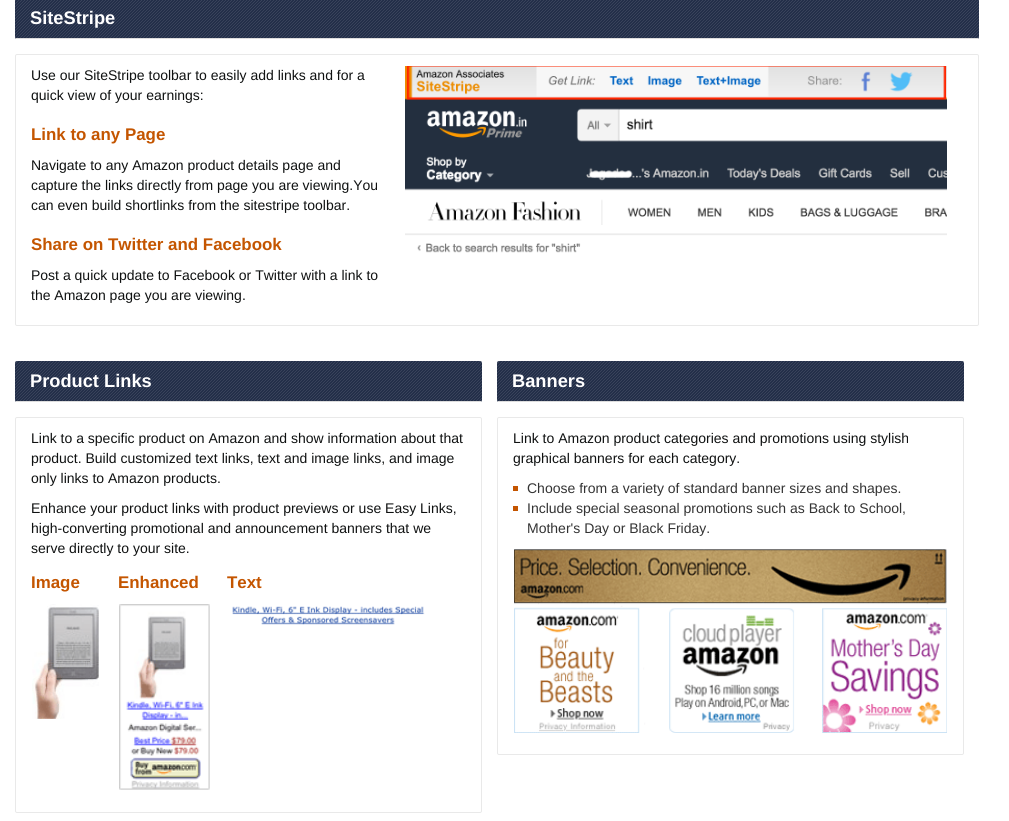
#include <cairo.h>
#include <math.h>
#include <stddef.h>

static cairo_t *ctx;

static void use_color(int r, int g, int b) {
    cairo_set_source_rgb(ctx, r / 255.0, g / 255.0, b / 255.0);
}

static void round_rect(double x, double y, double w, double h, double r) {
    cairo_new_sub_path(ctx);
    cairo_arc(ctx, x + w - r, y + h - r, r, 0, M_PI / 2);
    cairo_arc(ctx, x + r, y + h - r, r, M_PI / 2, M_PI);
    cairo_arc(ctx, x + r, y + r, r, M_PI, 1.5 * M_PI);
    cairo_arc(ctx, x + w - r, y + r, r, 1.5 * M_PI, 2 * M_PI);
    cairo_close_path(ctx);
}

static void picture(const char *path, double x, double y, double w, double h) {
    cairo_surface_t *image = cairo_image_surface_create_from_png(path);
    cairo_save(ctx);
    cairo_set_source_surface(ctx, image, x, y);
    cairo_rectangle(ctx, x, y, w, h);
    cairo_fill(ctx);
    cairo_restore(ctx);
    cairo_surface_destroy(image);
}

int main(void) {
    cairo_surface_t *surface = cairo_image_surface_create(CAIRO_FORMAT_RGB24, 1009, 821);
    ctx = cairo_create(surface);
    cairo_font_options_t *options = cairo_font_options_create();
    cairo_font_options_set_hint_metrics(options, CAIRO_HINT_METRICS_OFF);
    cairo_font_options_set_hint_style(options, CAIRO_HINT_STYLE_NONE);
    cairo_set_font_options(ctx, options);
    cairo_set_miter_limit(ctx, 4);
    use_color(255, 255, 255);
    cairo_paint(ctx);
    picture("img1.png", 15, 0, 964, 39);
    use_color(221, 221, 221);
    cairo_rectangle(ctx, 16, 38, 962, 1);
    cairo_fill(ctx);
    cairo_select_font_face(ctx, "Liberation Sans", CAIRO_FONT_SLANT_NORMAL, CAIRO_FONT_WEIGHT_BOLD);
    cairo_set_font_size(ctx, 18.25);
    use_color(255, 255, 255);
    cairo_move_to(ctx, 30, 24);
    cairo_show_text(ctx, "SiteStripe");
    round_rect(15.5, 54.5, 963, 271, 1.5);
    use_color(233, 233, 233);
    cairo_set_line_width(ctx, 1);
    cairo_stroke(ctx);
    cairo_select_font_face(ctx, "Liberation Sans", CAIRO_FONT_SLANT_NORMAL, CAIRO_FONT_WEIGHT_NORMAL);
    cairo_set_font_size(ctx, 14);
    use_color(15, 17, 17);
    cairo_move_to(ctx, 31, 80);
    cairo_show_text(ctx, "Use our SiteStripe toolbar to easily add links and for a");
    cairo_move_to(ctx, 31, 100);
    cairo_show_text(ctx, "quick view of your earnings:");
    cairo_select_font_face(ctx, "Liberation Sans", CAIRO_FONT_SLANT_NORMAL, CAIRO_FONT_WEIGHT_BOLD);
    cairo_set_font_size(ctx, 16.9);
    use_color(196, 85, 0);
    cairo_move_to(ctx, 31, 140);
    cairo_show_text(ctx, "Link to any Page");
    cairo_select_font_face(ctx, "Liberation Sans", CAIRO_FONT_SLANT_NORMAL, CAIRO_FONT_WEIGHT_NORMAL);
    cairo_set_font_size(ctx, 14);
    use_color(15, 17, 17);
    cairo_move_to(ctx, 31, 170);
    cairo_show_text(ctx, "Navigate to any Amazon product details page and");
    cairo_move_to(ctx, 31, 190);
    cairo_show_text(ctx, "capture the links directly from page you are viewing.You");
    cairo_move_to(ctx, 31, 210);
    cairo_show_text(ctx, "can even build shortlinks from the sitestripe toolbar.");
    cairo_select_font_face(ctx, "Liberation Sans", CAIRO_FONT_SLANT_NORMAL, CAIRO_FONT_WEIGHT_BOLD);
    cairo_set_font_size(ctx, 16.9);
    use_color(196, 85, 0);
    cairo_move_to(ctx, 31, 250);
    cairo_show_text(ctx, "Share on Twitter and Facebook");
    cairo_select_font_face(ctx, "Liberation Sans", CAIRO_FONT_SLANT_NORMAL, CAIRO_FONT_WEIGHT_NORMAL);
    cairo_set_font_size(ctx, 14);
    use_color(15, 17, 17);
    cairo_move_to(ctx, 31, 280);
    cairo_show_text(ctx, "Post a quick update to Facebook or Twitter with a link to");
    cairo_move_to(ctx, 31, 300);
    cairo_show_text(ctx, "the Amazon page you are viewing.");
    picture("img2.png", 405, 66, 542, 187);
    picture("img3.png", 15, 361, 467, 41);
    use_color(221, 221, 221);
    cairo_rectangle(ctx, 16, 401, 465, 1);
    cairo_fill(ctx);
    cairo_select_font_face(ctx, "Liberation Sans", CAIRO_FONT_SLANT_NORMAL, CAIRO_FONT_WEIGHT_BOLD);
    cairo_set_font_size(ctx, 18.25);
    use_color(255, 255, 255);
    cairo_move_to(ctx, 30, 387);
    cairo_show_text(ctx, "Product Links");
    round_rect(15.5, 417.5, 466, 395, 1.5);
    use_color(233, 233, 233);
    cairo_stroke(ctx);
    cairo_select_font_face(ctx, "Liberation Sans", CAIRO_FONT_SLANT_NORMAL, CAIRO_FONT_WEIGHT_NORMAL);
    cairo_set_font_size(ctx, 14);
    use_color(15, 17, 17);
    cairo_move_to(ctx, 31, 443);
    cairo_show_text(ctx, "Link to a specific product on Amazon and show information about that");
    cairo_move_to(ctx, 31, 463);
    cairo_show_text(ctx, "product. Build customized text links, text and image links, and image");
    cairo_move_to(ctx, 31, 483);
    cairo_show_text(ctx, "only links to Amazon products.");
    cairo_move_to(ctx, 31, 513);
    cairo_show_text(ctx, "Enhance your product links with product previews or use Easy Links,");
    cairo_move_to(ctx, 31, 533);
    cairo_show_text(ctx, "high-converting promotional and announcement banners that we");
    cairo_move_to(ctx, 31, 553);
    cairo_show_text(ctx, "serve directly to your site.");
    cairo_select_font_face(ctx, "Liberation Sans", CAIRO_FONT_SLANT_NORMAL, CAIRO_FONT_WEIGHT_BOLD);
    cairo_set_font_size(ctx, 16.9);
    use_color(196, 85, 0);
    cairo_move_to(ctx, 31, 588);
    cairo_show_text(ctx, "Image");
    picture("img4.png", 32, 604, 67, 115);
    cairo_move_to(ctx, 118, 588);
    cairo_show_text(ctx, "Enhanced");
    picture("img5.png", 119, 604, 91, 186);
    cairo_move_to(ctx, 227, 588);
    cairo_show_text(ctx, "Text");
    picture("img6.png", 232, 606, 193, 19);
    picture("img3.png", 497, 361, 467, 41);
    use_color(221, 221, 221);
    cairo_rectangle(ctx, 498, 401, 465, 1);
    cairo_fill(ctx);
    cairo_set_font_size(ctx, 18.25);
    use_color(255, 255, 255);
    cairo_move_to(ctx, 512, 387);
    cairo_show_text(ctx, "Banners");
    round_rect(497.5, 417.5, 466, 337, 1.5);
    use_color(233, 233, 233);
    cairo_stroke(ctx);
    cairo_select_font_face(ctx, "Liberation Sans", CAIRO_FONT_SLANT_NORMAL, CAIRO_FONT_WEIGHT_NORMAL);
    cairo_set_font_size(ctx, 14);
    use_color(15, 17, 17);
    cairo_move_to(ctx, 513, 443);
    cairo_show_text(ctx, "Link to Amazon product categories and promotions using stylish");
    cairo_move_to(ctx, 513, 463);
    cairo_show_text(ctx, "graphical banners for each category.");
    use_color(196, 85, 0);
    cairo_rectangle(ctx, 513, 486, 5, 5);
    cairo_fill(ctx);
    use_color(51, 51, 51);
    cairo_move_to(ctx, 527, 493);
    cairo_show_text(ctx, "Choose from a variety of standard banner sizes and shapes.");
    use_color(196, 85, 0);
    cairo_rectangle(ctx, 513, 506, 5, 5);
    cairo_fill(ctx);
    use_color(51, 51, 51);
    cairo_move_to(ctx, 527, 513);
    cairo_show_text(ctx, "Include special seasonal promotions such as Back to School,");
    cairo_move_to(ctx, 527, 533);
    cairo_show_text(ctx, "Mother's Day or Black Friday.");
    picture("img7.png", 514, 549, 433, 184);
    cairo_surface_write_to_png(surface, "result.png");
    cairo_font_options_destroy(options);
    cairo_destroy(ctx);
    cairo_surface_destroy(surface);
    return 0;
}
